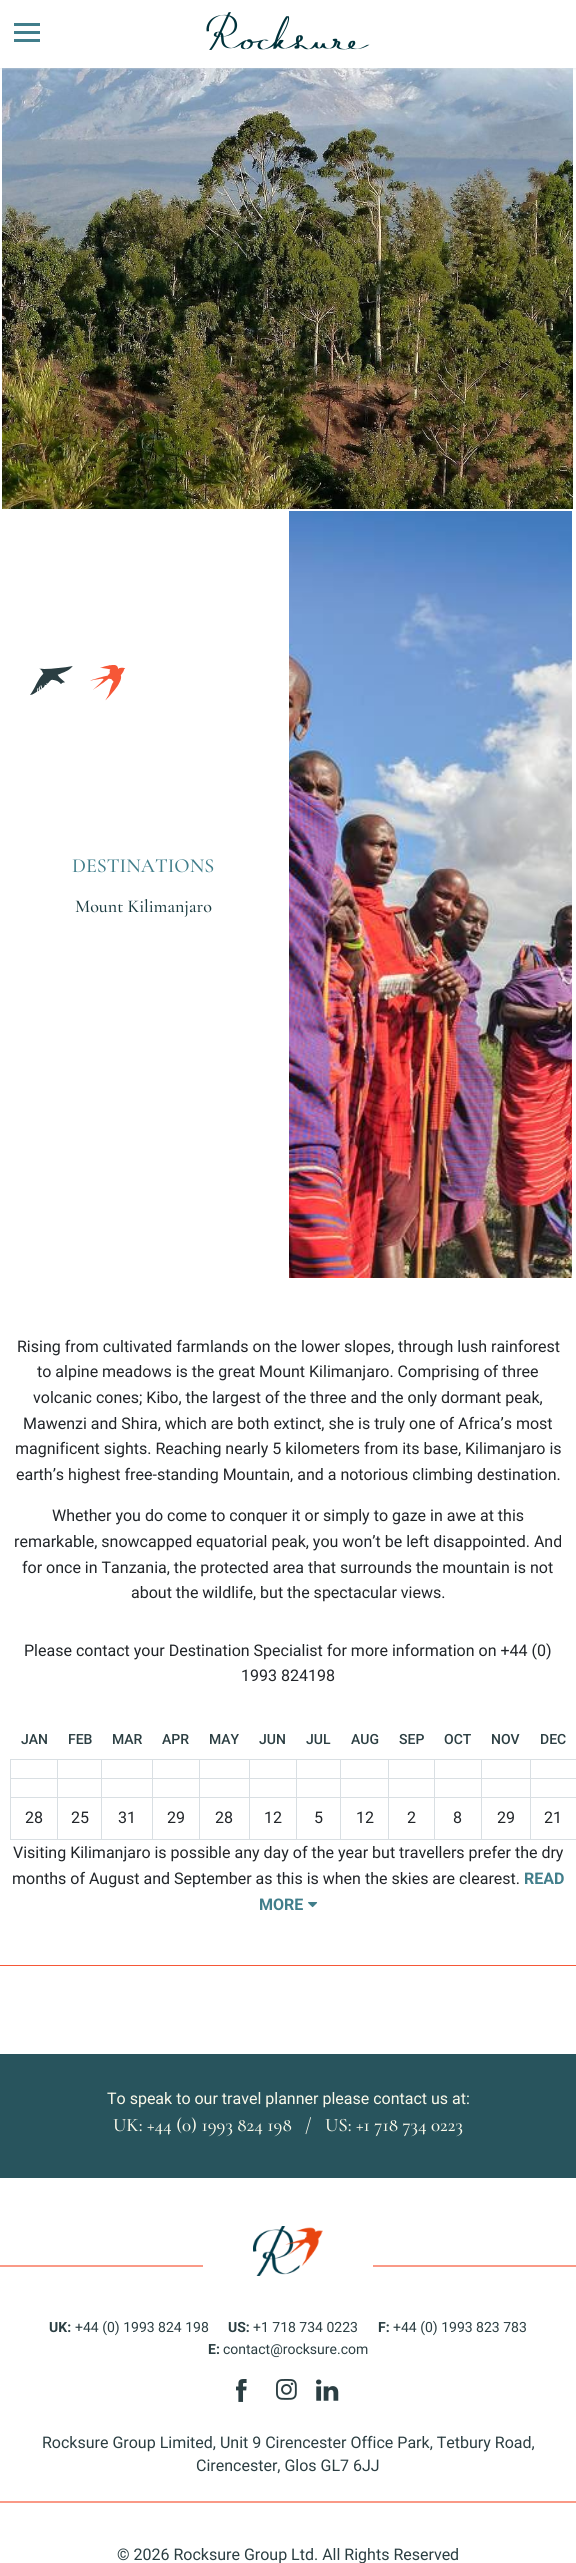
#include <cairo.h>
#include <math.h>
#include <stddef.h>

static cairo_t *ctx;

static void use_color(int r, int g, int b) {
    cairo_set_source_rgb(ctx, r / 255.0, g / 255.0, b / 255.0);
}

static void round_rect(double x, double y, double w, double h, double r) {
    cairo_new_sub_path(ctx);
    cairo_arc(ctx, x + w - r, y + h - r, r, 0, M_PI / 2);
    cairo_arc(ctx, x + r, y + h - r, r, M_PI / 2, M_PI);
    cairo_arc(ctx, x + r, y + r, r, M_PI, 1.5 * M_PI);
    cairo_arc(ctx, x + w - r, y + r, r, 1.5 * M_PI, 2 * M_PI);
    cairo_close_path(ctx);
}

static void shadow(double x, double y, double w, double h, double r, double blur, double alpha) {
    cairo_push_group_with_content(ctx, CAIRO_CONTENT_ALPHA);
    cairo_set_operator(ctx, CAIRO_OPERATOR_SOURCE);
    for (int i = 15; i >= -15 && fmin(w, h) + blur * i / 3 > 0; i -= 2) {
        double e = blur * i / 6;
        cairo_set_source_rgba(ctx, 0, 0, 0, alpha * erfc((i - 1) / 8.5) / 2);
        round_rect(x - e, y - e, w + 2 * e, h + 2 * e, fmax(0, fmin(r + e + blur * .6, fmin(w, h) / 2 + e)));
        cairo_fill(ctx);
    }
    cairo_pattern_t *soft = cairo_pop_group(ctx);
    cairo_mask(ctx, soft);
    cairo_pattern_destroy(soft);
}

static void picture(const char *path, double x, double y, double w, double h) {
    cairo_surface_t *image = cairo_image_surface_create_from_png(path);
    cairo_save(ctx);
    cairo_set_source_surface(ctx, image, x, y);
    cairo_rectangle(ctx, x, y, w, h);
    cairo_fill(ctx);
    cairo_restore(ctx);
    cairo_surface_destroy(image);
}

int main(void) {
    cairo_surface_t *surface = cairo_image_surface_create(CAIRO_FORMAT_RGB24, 576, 2563);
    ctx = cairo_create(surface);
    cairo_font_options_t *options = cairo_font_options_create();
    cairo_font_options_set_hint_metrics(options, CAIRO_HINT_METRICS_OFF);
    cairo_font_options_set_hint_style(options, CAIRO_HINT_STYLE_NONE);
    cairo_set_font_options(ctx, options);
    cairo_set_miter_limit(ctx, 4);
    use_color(255, 255, 255);
    cairo_paint(ctx);
    picture("img2.png", 2, 68, 571, 441);
    use_color(217, 223, 227);
    shadow(0, 1, 576, 68, 0, 1, 0.5);
    use_color(255, 255, 255);
    cairo_rectangle(ctx, 0, 0, 576, 68);
    cairo_fill(ctx);
    use_color(65, 126, 139);
    cairo_rectangle(ctx, 14, 31, 26, 3);
    cairo_fill(ctx);
    cairo_rectangle(ctx, 14, 23, 26, 3);
    cairo_fill(ctx);
    cairo_rectangle(ctx, 14, 39, 26, 3);
    cairo_fill(ctx);
    picture("img1.png", 206, 12, 164, 38);
    picture("img3.png", 30, 665, 96, 36);
    cairo_select_font_face(ctx, "Cormorant Garamond Light", CAIRO_FONT_SLANT_NORMAL, CAIRO_FONT_WEIGHT_NORMAL);
    cairo_set_font_size(ctx, 20);
    cairo_move_to(ctx, 72, 872);
    cairo_show_text(ctx, "DESTINATIONS");
    cairo_set_font_size(ctx, 18);
    use_color(26, 59, 64);
    cairo_move_to(ctx, 75, 912);
    cairo_show_text(ctx, "Mount Kilimanjaro");
    picture("img4.png", 289, 511, 283, 767);
    cairo_select_font_face(ctx, "Roboto", CAIRO_FONT_SLANT_NORMAL, CAIRO_FONT_WEIGHT_NORMAL);
    cairo_set_font_size(ctx, 16);
    use_color(33, 37, 41);
    cairo_move_to(ctx, 17, 1352);
    cairo_show_text(ctx, "Rising from cultivated farmlands on the lower slopes, through lush rainforest");
    cairo_move_to(ctx, 37, 1377);
    cairo_show_text(ctx, "to alpine meadows is the great Mount Kilimanjaro. Comprising of three");
    cairo_move_to(ctx, 33, 1403);
    cairo_show_text(ctx, "volcanic cones; Kibo, the largest of the three and the only dormant peak,");
    cairo_move_to(ctx, 23, 1429);
    cairo_show_text(ctx, "Mawenzi and Shira, which are both extinct, she is truly one of Africa’s most");
    cairo_move_to(ctx, 15, 1454);
    cairo_show_text(ctx, "magnificent sights. Reaching nearly 5 kilometers from its base, Kilimanjaro is");
    cairo_move_to(ctx, 16, 1480);
    cairo_show_text(ctx, "earth’s highest free-standing Mountain, and a notorious climbing destination.");
    cairo_move_to(ctx, 52, 1521);
    cairo_show_text(ctx, "Whether you do come to conquer it or simply to gaze in awe at this");
    cairo_move_to(ctx, 14, 1547);
    cairo_show_text(ctx, "remarkable, snowcapped equatorial peak, you won’t be left disappointed. And");
    cairo_move_to(ctx, 22, 1573);
    cairo_show_text(ctx, "for once in Tanzania, the protected area that surrounds the mountain is not");
    cairo_move_to(ctx, 131, 1598);
    cairo_show_text(ctx, "about the wildlife, but the spectacular views.");
    cairo_move_to(ctx, 24, 1656);
    cairo_show_text(ctx, "Please contact your Destination Specialist for more information on +44 (0)");
    cairo_move_to(ctx, 241, 1681);
    cairo_show_text(ctx, "1993 824198");
    cairo_select_font_face(ctx, "Roboto Medium", CAIRO_FONT_SLANT_NORMAL, CAIRO_FONT_WEIGHT_NORMAL);
    cairo_set_font_size(ctx, 14);
    use_color(43, 62, 66);
    cairo_move_to(ctx, 21, 1744);
    cairo_show_text(ctx, "JAN");
    cairo_move_to(ctx, 68, 1744);
    cairo_show_text(ctx, "FEB");
    cairo_move_to(ctx, 112, 1744);
    cairo_show_text(ctx, "MAR");
    cairo_move_to(ctx, 162, 1744);
    cairo_show_text(ctx, "APR");
    cairo_move_to(ctx, 209, 1744);
    cairo_show_text(ctx, "MAY");
    cairo_move_to(ctx, 259, 1744);
    cairo_show_text(ctx, "JUN");
    cairo_move_to(ctx, 306, 1744);
    cairo_show_text(ctx, "JUL");
    cairo_move_to(ctx, 351, 1744);
    cairo_show_text(ctx, "AUG");
    cairo_move_to(ctx, 399, 1744);
    cairo_show_text(ctx, "SEP");
    cairo_move_to(ctx, 444, 1744);
    cairo_show_text(ctx, "OCT");
    cairo_move_to(ctx, 491, 1744);
    cairo_show_text(ctx, "NOV");
    cairo_move_to(ctx, 540, 1744);
    cairo_show_text(ctx, "DEC");
    use_color(217, 223, 227);
    cairo_rectangle(ctx, 530, 1759, 46, 1);
    cairo_fill(ctx);
    cairo_rectangle(ctx, 530, 1778, 46, 1);
    cairo_fill(ctx);
    cairo_rectangle(ctx, 530, 1797, 46, 1);
    cairo_fill(ctx);
    cairo_rectangle(ctx, 530, 1839, 46, 1);
    cairo_fill(ctx);
    cairo_rectangle(ctx, 530, 1797, 1, 43);
    cairo_fill(ctx);
    cairo_rectangle(ctx, 481, 1797, 50, 1);
    cairo_fill(ctx);
    cairo_rectangle(ctx, 530, 1778, 1, 20);
    cairo_fill(ctx);
    cairo_rectangle(ctx, 481, 1778, 50, 1);
    cairo_fill(ctx);
    cairo_rectangle(ctx, 530, 1759, 1, 20);
    cairo_fill(ctx);
    cairo_rectangle(ctx, 481, 1759, 50, 1);
    cairo_fill(ctx);
    cairo_rectangle(ctx, 481, 1839, 50, 1);
    cairo_fill(ctx);
    cairo_rectangle(ctx, 481, 1797, 1, 43);
    cairo_fill(ctx);
    cairo_rectangle(ctx, 434, 1797, 48, 1);
    cairo_fill(ctx);
    cairo_rectangle(ctx, 481, 1778, 1, 20);
    cairo_fill(ctx);
    cairo_rectangle(ctx, 434, 1778, 48, 1);
    cairo_fill(ctx);
    cairo_rectangle(ctx, 481, 1759, 1, 20);
    cairo_fill(ctx);
    cairo_rectangle(ctx, 434, 1759, 48, 1);
    cairo_fill(ctx);
    cairo_rectangle(ctx, 434, 1839, 48, 1);
    cairo_fill(ctx);
    cairo_rectangle(ctx, 434, 1797, 1, 43);
    cairo_fill(ctx);
    cairo_rectangle(ctx, 388, 1797, 47, 1);
    cairo_fill(ctx);
    cairo_rectangle(ctx, 434, 1778, 1, 20);
    cairo_fill(ctx);
    cairo_rectangle(ctx, 388, 1778, 47, 1);
    cairo_fill(ctx);
    cairo_rectangle(ctx, 434, 1759, 1, 20);
    cairo_fill(ctx);
    cairo_rectangle(ctx, 388, 1759, 47, 1);
    cairo_fill(ctx);
    cairo_rectangle(ctx, 388, 1839, 47, 1);
    cairo_fill(ctx);
    cairo_rectangle(ctx, 388, 1797, 1, 43);
    cairo_fill(ctx);
    cairo_rectangle(ctx, 340, 1797, 49, 1);
    cairo_fill(ctx);
    cairo_rectangle(ctx, 388, 1778, 1, 20);
    cairo_fill(ctx);
    cairo_rectangle(ctx, 340, 1778, 49, 1);
    cairo_fill(ctx);
    cairo_rectangle(ctx, 388, 1759, 1, 20);
    cairo_fill(ctx);
    cairo_rectangle(ctx, 340, 1759, 49, 1);
    cairo_fill(ctx);
    cairo_rectangle(ctx, 340, 1839, 49, 1);
    cairo_fill(ctx);
    cairo_rectangle(ctx, 340, 1797, 1, 43);
    cairo_fill(ctx);
    cairo_rectangle(ctx, 296, 1797, 45, 1);
    cairo_fill(ctx);
    cairo_rectangle(ctx, 340, 1778, 1, 20);
    cairo_fill(ctx);
    cairo_rectangle(ctx, 296, 1778, 45, 1);
    cairo_fill(ctx);
    cairo_rectangle(ctx, 340, 1759, 1, 20);
    cairo_fill(ctx);
    cairo_rectangle(ctx, 296, 1759, 45, 1);
    cairo_fill(ctx);
    cairo_rectangle(ctx, 296, 1839, 45, 1);
    cairo_fill(ctx);
    cairo_rectangle(ctx, 296, 1797, 1, 43);
    cairo_fill(ctx);
    cairo_rectangle(ctx, 249, 1797, 48, 1);
    cairo_fill(ctx);
    cairo_rectangle(ctx, 296, 1778, 1, 20);
    cairo_fill(ctx);
    cairo_rectangle(ctx, 249, 1778, 48, 1);
    cairo_fill(ctx);
    cairo_rectangle(ctx, 296, 1759, 1, 20);
    cairo_fill(ctx);
    cairo_rectangle(ctx, 249, 1759, 48, 1);
    cairo_fill(ctx);
    cairo_rectangle(ctx, 249, 1839, 48, 1);
    cairo_fill(ctx);
    cairo_rectangle(ctx, 249, 1797, 1, 43);
    cairo_fill(ctx);
    cairo_rectangle(ctx, 199, 1797, 51, 1);
    cairo_fill(ctx);
    cairo_rectangle(ctx, 249, 1778, 1, 20);
    cairo_fill(ctx);
    cairo_rectangle(ctx, 199, 1778, 51, 1);
    cairo_fill(ctx);
    cairo_rectangle(ctx, 249, 1759, 1, 20);
    cairo_fill(ctx);
    cairo_rectangle(ctx, 199, 1759, 51, 1);
    cairo_fill(ctx);
    cairo_rectangle(ctx, 199, 1839, 51, 1);
    cairo_fill(ctx);
    cairo_rectangle(ctx, 199, 1797, 1, 43);
    cairo_fill(ctx);
    cairo_rectangle(ctx, 152, 1797, 48, 1);
    cairo_fill(ctx);
    cairo_rectangle(ctx, 199, 1778, 1, 20);
    cairo_fill(ctx);
    cairo_rectangle(ctx, 152, 1778, 48, 1);
    cairo_fill(ctx);
    cairo_rectangle(ctx, 199, 1759, 1, 20);
    cairo_fill(ctx);
    cairo_rectangle(ctx, 152, 1759, 48, 1);
    cairo_fill(ctx);
    cairo_rectangle(ctx, 152, 1839, 48, 1);
    cairo_fill(ctx);
    cairo_rectangle(ctx, 152, 1797, 1, 43);
    cairo_fill(ctx);
    cairo_rectangle(ctx, 101, 1797, 52, 1);
    cairo_fill(ctx);
    cairo_rectangle(ctx, 152, 1778, 1, 20);
    cairo_fill(ctx);
    cairo_rectangle(ctx, 101, 1778, 52, 1);
    cairo_fill(ctx);
    cairo_rectangle(ctx, 152, 1759, 1, 20);
    cairo_fill(ctx);
    cairo_rectangle(ctx, 101, 1759, 52, 1);
    cairo_fill(ctx);
    cairo_rectangle(ctx, 101, 1839, 52, 1);
    cairo_fill(ctx);
    cairo_rectangle(ctx, 101, 1797, 1, 43);
    cairo_fill(ctx);
    cairo_rectangle(ctx, 57, 1797, 45, 1);
    cairo_fill(ctx);
    cairo_rectangle(ctx, 101, 1778, 1, 20);
    cairo_fill(ctx);
    cairo_rectangle(ctx, 57, 1778, 45, 1);
    cairo_fill(ctx);
    cairo_rectangle(ctx, 101, 1759, 1, 20);
    cairo_fill(ctx);
    cairo_rectangle(ctx, 57, 1759, 45, 1);
    cairo_fill(ctx);
    cairo_rectangle(ctx, 57, 1839, 45, 1);
    cairo_fill(ctx);
    cairo_rectangle(ctx, 57, 1797, 1, 43);
    cairo_fill(ctx);
    cairo_rectangle(ctx, 10, 1797, 48, 1);
    cairo_fill(ctx);
    cairo_rectangle(ctx, 57, 1778, 1, 20);
    cairo_fill(ctx);
    cairo_rectangle(ctx, 10, 1778, 48, 1);
    cairo_fill(ctx);
    cairo_rectangle(ctx, 57, 1759, 1, 20);
    cairo_fill(ctx);
    cairo_rectangle(ctx, 10, 1759, 48, 1);
    cairo_fill(ctx);
    cairo_rectangle(ctx, 10, 1839, 48, 1);
    cairo_fill(ctx);
    cairo_rectangle(ctx, 10, 1797, 1, 43);
    cairo_fill(ctx);
    cairo_rectangle(ctx, 10, 1778, 1, 20);
    cairo_fill(ctx);
    cairo_rectangle(ctx, 10, 1759, 1, 20);
    cairo_fill(ctx);
    cairo_select_font_face(ctx, "Roboto", CAIRO_FONT_SLANT_NORMAL, CAIRO_FONT_WEIGHT_NORMAL);
    cairo_set_font_size(ctx, 16);
    use_color(33, 37, 41);
    cairo_move_to(ctx, 25, 1823);
    cairo_show_text(ctx, "28");
    cairo_move_to(ctx, 71, 1823);
    cairo_show_text(ctx, "25");
    cairo_move_to(ctx, 118, 1823);
    cairo_show_text(ctx, "31");
    cairo_move_to(ctx, 167, 1823);
    cairo_show_text(ctx, "29");
    cairo_move_to(ctx, 215, 1823);
    cairo_show_text(ctx, "28");
    cairo_move_to(ctx, 264, 1823);
    cairo_show_text(ctx, "12");
    cairo_move_to(ctx, 314, 1823);
    cairo_show_text(ctx, "5");
    cairo_move_to(ctx, 356, 1823);
    cairo_show_text(ctx, "12");
    cairo_move_to(ctx, 407, 1823);
    cairo_show_text(ctx, "2");
    cairo_move_to(ctx, 453, 1823);
    cairo_show_text(ctx, "8");
    cairo_move_to(ctx, 497, 1823);
    cairo_show_text(ctx, "29");
    cairo_move_to(ctx, 544, 1823);
    cairo_show_text(ctx, "21");
    cairo_move_to(ctx, 13, 1858);
    cairo_show_text(ctx, "Visiting Kilimanjaro is possible any day of the year but travellers prefer the dry");
    cairo_move_to(ctx, 12, 1884);
    cairo_show_text(ctx, "months of August and September as this is when the skies are clearest.");
    cairo_select_font_face(ctx, "Roboto", CAIRO_FONT_SLANT_NORMAL, CAIRO_FONT_WEIGHT_BOLD);
    use_color(65, 126, 139);
    cairo_move_to(ctx, 524, 1884);
    cairo_show_text(ctx, "READ");
    cairo_move_to(ctx, 259, 1910);
    cairo_show_text(ctx, "MORE");
    picture("img5.png", 308, 1902, 10, 6);
    use_color(246, 87, 55);
    cairo_rectangle(ctx, 0, 1965, 576, 1);
    cairo_fill(ctx);
    use_color(40, 84, 93);
    cairo_rectangle(ctx, 0, 2054, 576, 124);
    cairo_fill(ctx);
    cairo_select_font_face(ctx, "Roboto", CAIRO_FONT_SLANT_NORMAL, CAIRO_FONT_WEIGHT_NORMAL);
    use_color(251, 249, 234);
    cairo_move_to(ctx, 107, 2104);
    cairo_show_text(ctx, "To speak to our travel planner please contact us at:");
    cairo_select_font_face(ctx, "Cormorant Garamond Light", CAIRO_FONT_SLANT_NORMAL, CAIRO_FONT_WEIGHT_NORMAL);
    cairo_set_font_size(ctx, 19);
    cairo_move_to(ctx, 113, 2131);
    cairo_show_text(ctx, "UK: +44 (0) 1993 824 198   /   US: +1 718 734 0223");
    use_color(250, 154, 135);
    cairo_rectangle(ctx, 0, 2265, 203, 2);
    cairo_fill(ctx);
    picture("img6.png", 253, 2226, 70, 50);
    cairo_rectangle(ctx, 373, 2265, 203, 2);
    cairo_fill(ctx);
    cairo_select_font_face(ctx, "Roboto", CAIRO_FONT_SLANT_NORMAL, CAIRO_FONT_WEIGHT_BOLD);
    cairo_set_font_size(ctx, 14);
    use_color(43, 62, 66);
    cairo_move_to(ctx, 49, 2332);
    cairo_show_text(ctx, "UK:");
    cairo_select_font_face(ctx, "Roboto", CAIRO_FONT_SLANT_NORMAL, CAIRO_FONT_WEIGHT_NORMAL);
    cairo_move_to(ctx, 75, 2332);
    cairo_show_text(ctx, "+44 (0) 1993 824 198");
    cairo_select_font_face(ctx, "Roboto", CAIRO_FONT_SLANT_NORMAL, CAIRO_FONT_WEIGHT_BOLD);
    cairo_move_to(ctx, 228, 2332);
    cairo_show_text(ctx, "US:");
    cairo_select_font_face(ctx, "Roboto", CAIRO_FONT_SLANT_NORMAL, CAIRO_FONT_WEIGHT_NORMAL);
    cairo_move_to(ctx, 253, 2332);
    cairo_show_text(ctx, "+1 718 734 0223");
    cairo_select_font_face(ctx, "Roboto", CAIRO_FONT_SLANT_NORMAL, CAIRO_FONT_WEIGHT_BOLD);
    cairo_move_to(ctx, 378, 2332);
    cairo_show_text(ctx, "F:");
    cairo_select_font_face(ctx, "Roboto", CAIRO_FONT_SLANT_NORMAL, CAIRO_FONT_WEIGHT_NORMAL);
    cairo_move_to(ctx, 393, 2332);
    cairo_show_text(ctx, "+44 (0) 1993 823 783");
    cairo_select_font_face(ctx, "Roboto", CAIRO_FONT_SLANT_NORMAL, CAIRO_FONT_WEIGHT_BOLD);
    cairo_move_to(ctx, 208, 2354);
    cairo_show_text(ctx, "E:");
    cairo_select_font_face(ctx, "Roboto", CAIRO_FONT_SLANT_NORMAL, CAIRO_FONT_WEIGHT_NORMAL);
    cairo_move_to(ctx, 223, 2354);
    cairo_show_text(ctx, "contact@rocksure.com");
    picture("img7.png", 236, 2379, 11, 23);
    picture("img8.png", 276, 2379, 21, 21);
    picture("img9.png", 316, 2379, 23, 22);
    cairo_set_font_size(ctx, 16);
    cairo_move_to(ctx, 42, 2448);
    cairo_show_text(ctx, "Rocksure Group Limited, Unit 9 Cirencester Office Park, Tetbury Road,");
    cairo_move_to(ctx, 196, 2471);
    cairo_show_text(ctx, "Cirencester, Glos GL7 6JJ");
    use_color(250, 154, 135);
    cairo_rectangle(ctx, 0, 2501, 576, 2);
    cairo_fill(ctx);
    use_color(43, 62, 66);
    cairo_move_to(ctx, 117, 2560);
    cairo_show_text(ctx, "© 2026 Rocksure Group Ltd. All Rights Reserved");
    cairo_surface_write_to_png(surface, "result.png");
    cairo_font_options_destroy(options);
    cairo_destroy(ctx);
    cairo_surface_destroy(surface);
    return 0;
}
